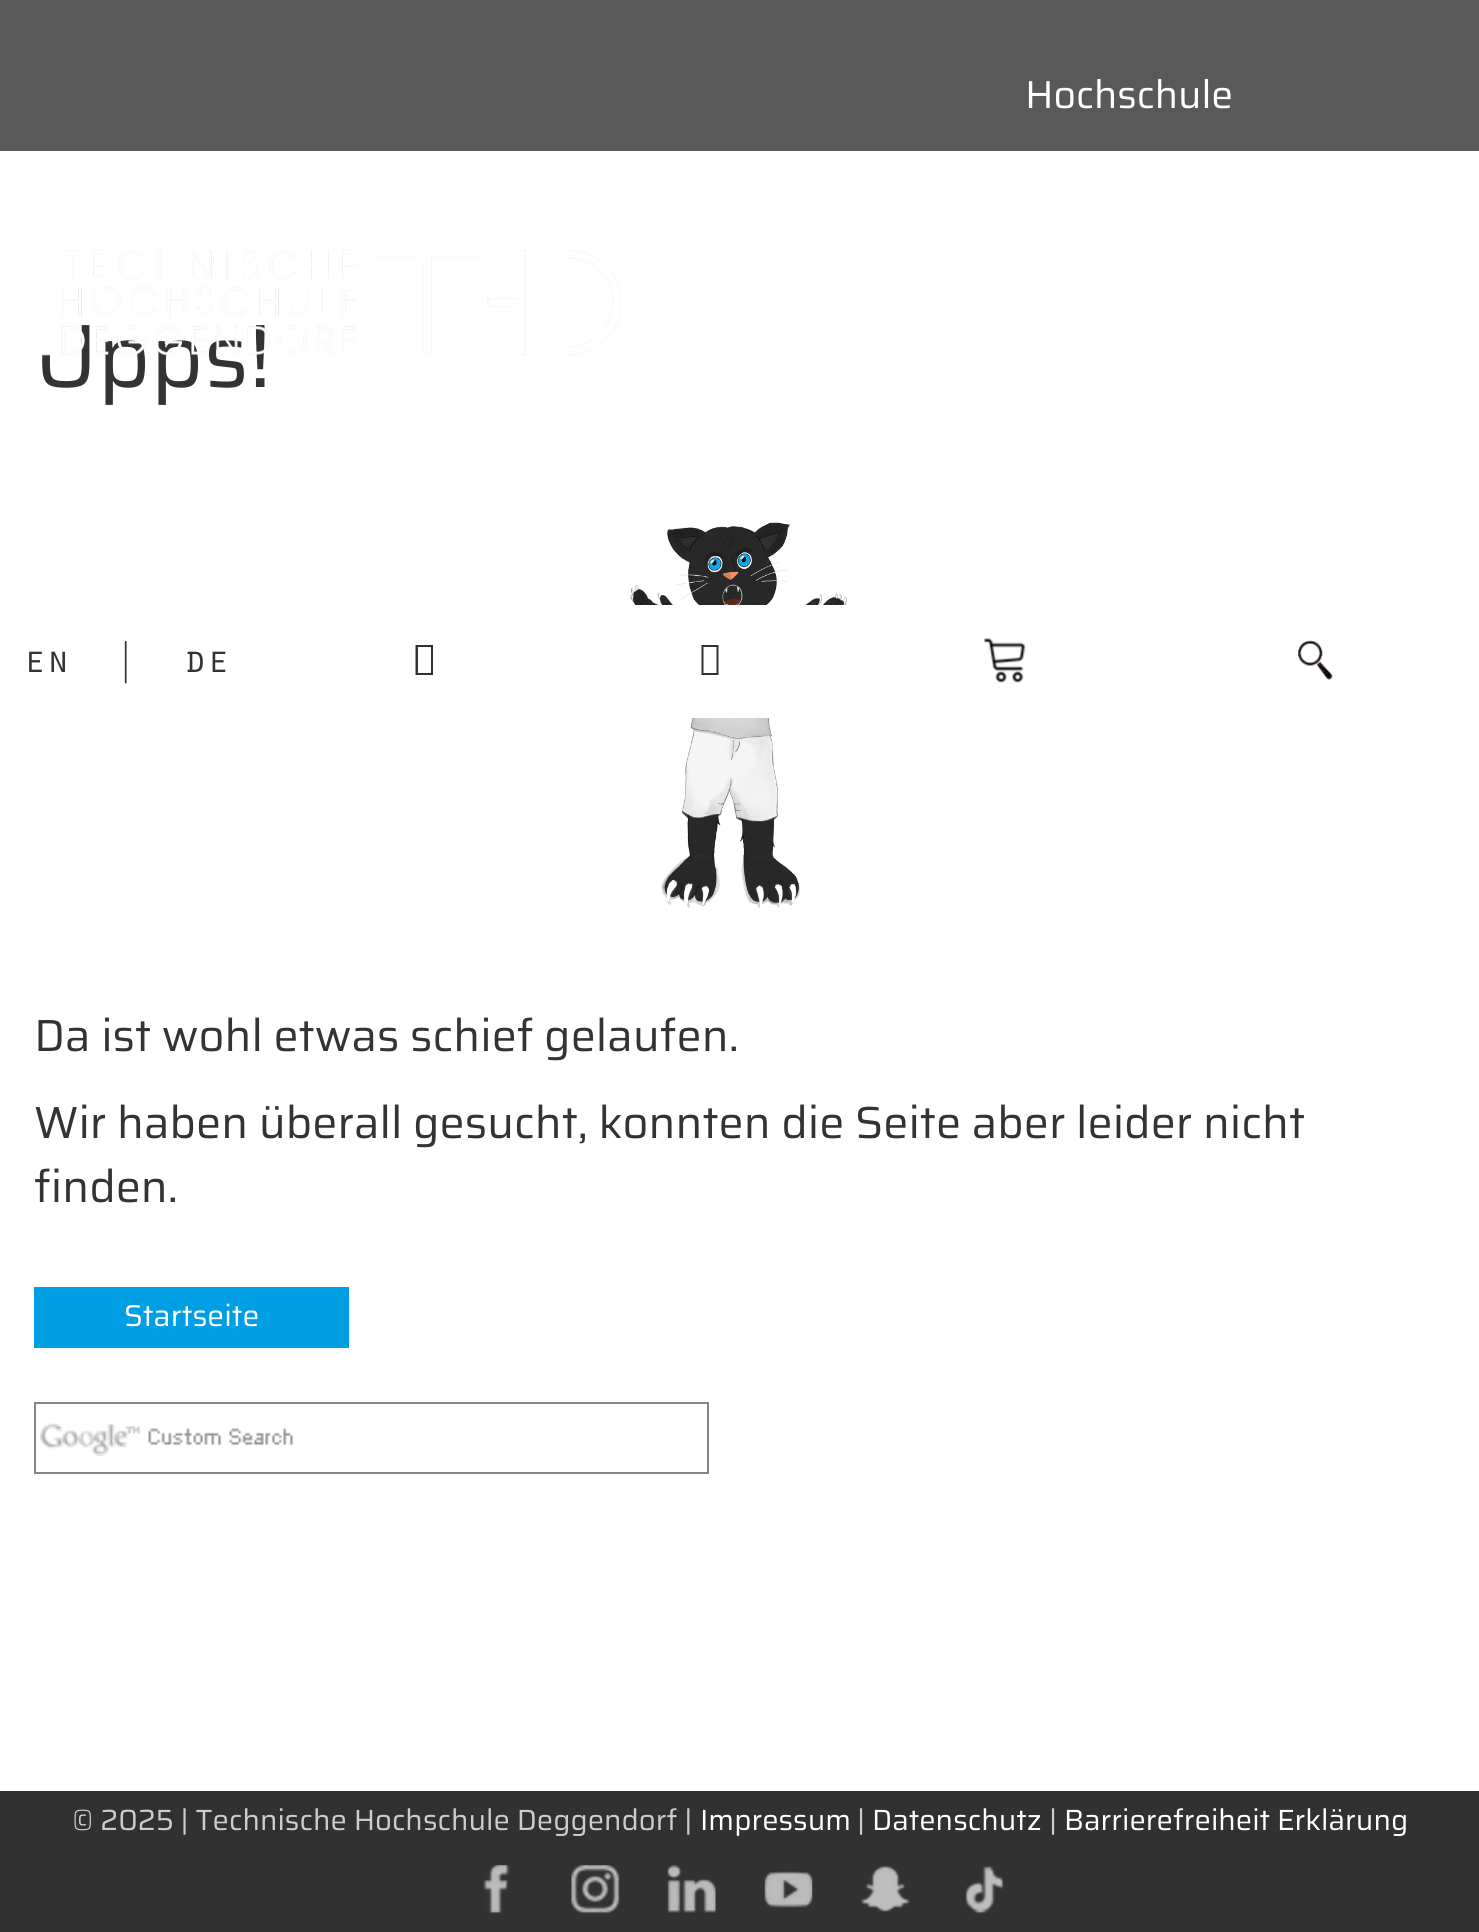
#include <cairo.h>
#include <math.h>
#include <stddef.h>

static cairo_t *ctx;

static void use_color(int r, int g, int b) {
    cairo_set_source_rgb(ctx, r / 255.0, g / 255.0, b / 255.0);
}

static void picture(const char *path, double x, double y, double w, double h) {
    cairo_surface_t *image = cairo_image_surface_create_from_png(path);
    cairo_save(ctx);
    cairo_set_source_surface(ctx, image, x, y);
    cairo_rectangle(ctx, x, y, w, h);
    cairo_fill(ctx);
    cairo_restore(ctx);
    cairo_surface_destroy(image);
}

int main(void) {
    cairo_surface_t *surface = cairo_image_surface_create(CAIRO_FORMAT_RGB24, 1479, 1932);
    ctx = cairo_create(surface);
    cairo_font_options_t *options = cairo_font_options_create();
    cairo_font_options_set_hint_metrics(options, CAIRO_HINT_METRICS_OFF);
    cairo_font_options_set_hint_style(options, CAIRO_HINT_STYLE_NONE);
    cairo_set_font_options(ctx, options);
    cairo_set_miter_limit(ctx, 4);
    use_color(255, 255, 255);
    cairo_paint(ctx);
    use_color(89, 89, 89);
    cairo_rectangle(ctx, 0, 0, 1479, 151);
    cairo_fill(ctx);
    cairo_select_font_face(ctx, "Saira", CAIRO_FONT_SLANT_NORMAL, CAIRO_FONT_WEIGHT_NORMAL);
    cairo_set_font_size(ctx, 39);
    use_color(255, 255, 255);
    cairo_move_to(ctx, 1025, 108);
    cairo_show_text(ctx, "Hochschule");
    cairo_set_font_size(ctx, 90);
    use_color(51, 51, 51);
    cairo_move_to(ctx, 34, 387);
    cairo_show_text(ctx, "Upps!");
    picture("img1.png", 41, 250, 580, 106);
    picture("img4.png", 630, 522, 217, 386);
    use_color(255, 255, 255);
    cairo_rectangle(ctx, 635, 605, 211, 113);
    cairo_fill(ctx);
    cairo_select_font_face(ctx, "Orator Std", CAIRO_FONT_SLANT_NORMAL, CAIRO_FONT_WEIGHT_NORMAL);
    cairo_set_font_size(ctx, 39);
    use_color(51, 51, 51);
    cairo_move_to(ctx, 23, 672);
    cairo_show_text(ctx, "en");
    cairo_move_to(ctx, 114, 672);
    cairo_show_text(ctx, "|");
    cairo_move_to(ctx, 183, 672);
    cairo_show_text(ctx, "de");
    use_color(49, 49, 49);
    cairo_new_path(ctx);
    cairo_move_to(ctx, 415.5, 675);
    cairo_line_to(ctx, 415.5, 645);
    cairo_line_to(ctx, 433, 645);
    cairo_line_to(ctx, 433, 675);
    cairo_close_path(ctx);
    cairo_move_to(ctx, 418, 673);
    cairo_line_to(ctx, 431, 673);
    cairo_line_to(ctx, 431, 647);
    cairo_line_to(ctx, 418, 647);
    cairo_close_path(ctx);
    cairo_fill(ctx);
    cairo_new_path(ctx);
    cairo_move_to(ctx, 701.5, 675);
    cairo_line_to(ctx, 701.5, 645);
    cairo_line_to(ctx, 718.5, 645);
    cairo_line_to(ctx, 718.5, 675);
    cairo_close_path(ctx);
    cairo_move_to(ctx, 703.5, 673);
    cairo_line_to(ctx, 716.5, 673);
    cairo_line_to(ctx, 716.5, 647);
    cairo_line_to(ctx, 703.5, 647);
    cairo_close_path(ctx);
    cairo_fill(ctx);
    picture("img2.png", 983, 638, 43, 45);
    picture("img3.png", 1298, 640, 35, 40);
    cairo_select_font_face(ctx, "Saira", CAIRO_FONT_SLANT_NORMAL, CAIRO_FONT_WEIGHT_NORMAL);
    cairo_set_font_size(ctx, 45);
    use_color(51, 51, 51);
    cairo_move_to(ctx, 34, 1051);
    cairo_show_text(ctx, "Da ist wohl etwas schief gelaufen.");
    cairo_move_to(ctx, 34, 1138);
    cairo_show_text(ctx, "Wir haben überall gesucht, konnten die Seite aber leider nicht");
    cairo_move_to(ctx, 34, 1202);
    cairo_show_text(ctx, "finden.");
    use_color(0, 159, 227);
    cairo_rectangle(ctx, 34, 1287, 315, 61);
    cairo_fill(ctx);
    cairo_set_font_size(ctx, 30);
    use_color(255, 255, 255);
    cairo_move_to(ctx, 124, 1326);
    cairo_show_text(ctx, "Startseite");
    picture("img5.png", 40, 1423, 254, 33);
    cairo_rectangle(ctx, 35, 1403, 673, 70);
    use_color(134, 134, 134);
    cairo_stroke(ctx);
    use_color(49, 49, 49);
    cairo_rectangle(ctx, 0, 1791, 1479, 141);
    cairo_fill(ctx);
    picture("img6.png", 483, 1865, 27, 49);
    picture("img7.png", 571, 1865, 49, 49);
    picture("img8.png", 667, 1865, 49, 48);
    picture("img9.png", 764, 1871, 49, 37);
    picture("img10.png", 861, 1865, 49, 48);
    picture("img11.png", 965, 1866, 39, 48);
    cairo_set_font_size(ctx, 29.25);
    use_color(204, 204, 204);
    cairo_move_to(ctx, 72, 1830);
    cairo_show_text(ctx, "© 2025 | Technische Hochschule Deggendorf |");
    use_color(255, 255, 255);
    cairo_move_to(ctx, 700, 1830);
    cairo_show_text(ctx, "Impressum");
    use_color(204, 204, 204);
    cairo_move_to(ctx, 857, 1830);
    cairo_show_text(ctx, "|");
    use_color(255, 255, 255);
    cairo_move_to(ctx, 872, 1830);
    cairo_show_text(ctx, "Datenschutz");
    use_color(204, 204, 204);
    cairo_move_to(ctx, 1049, 1830);
    cairo_show_text(ctx, "|");
    use_color(255, 255, 255);
    cairo_move_to(ctx, 1064, 1830);
    cairo_show_text(ctx, "Barrierefreiheit Erklärung");
    cairo_surface_write_to_png(surface, "result.png");
    cairo_font_options_destroy(options);
    cairo_destroy(ctx);
    cairo_surface_destroy(surface);
    return 0;
}
